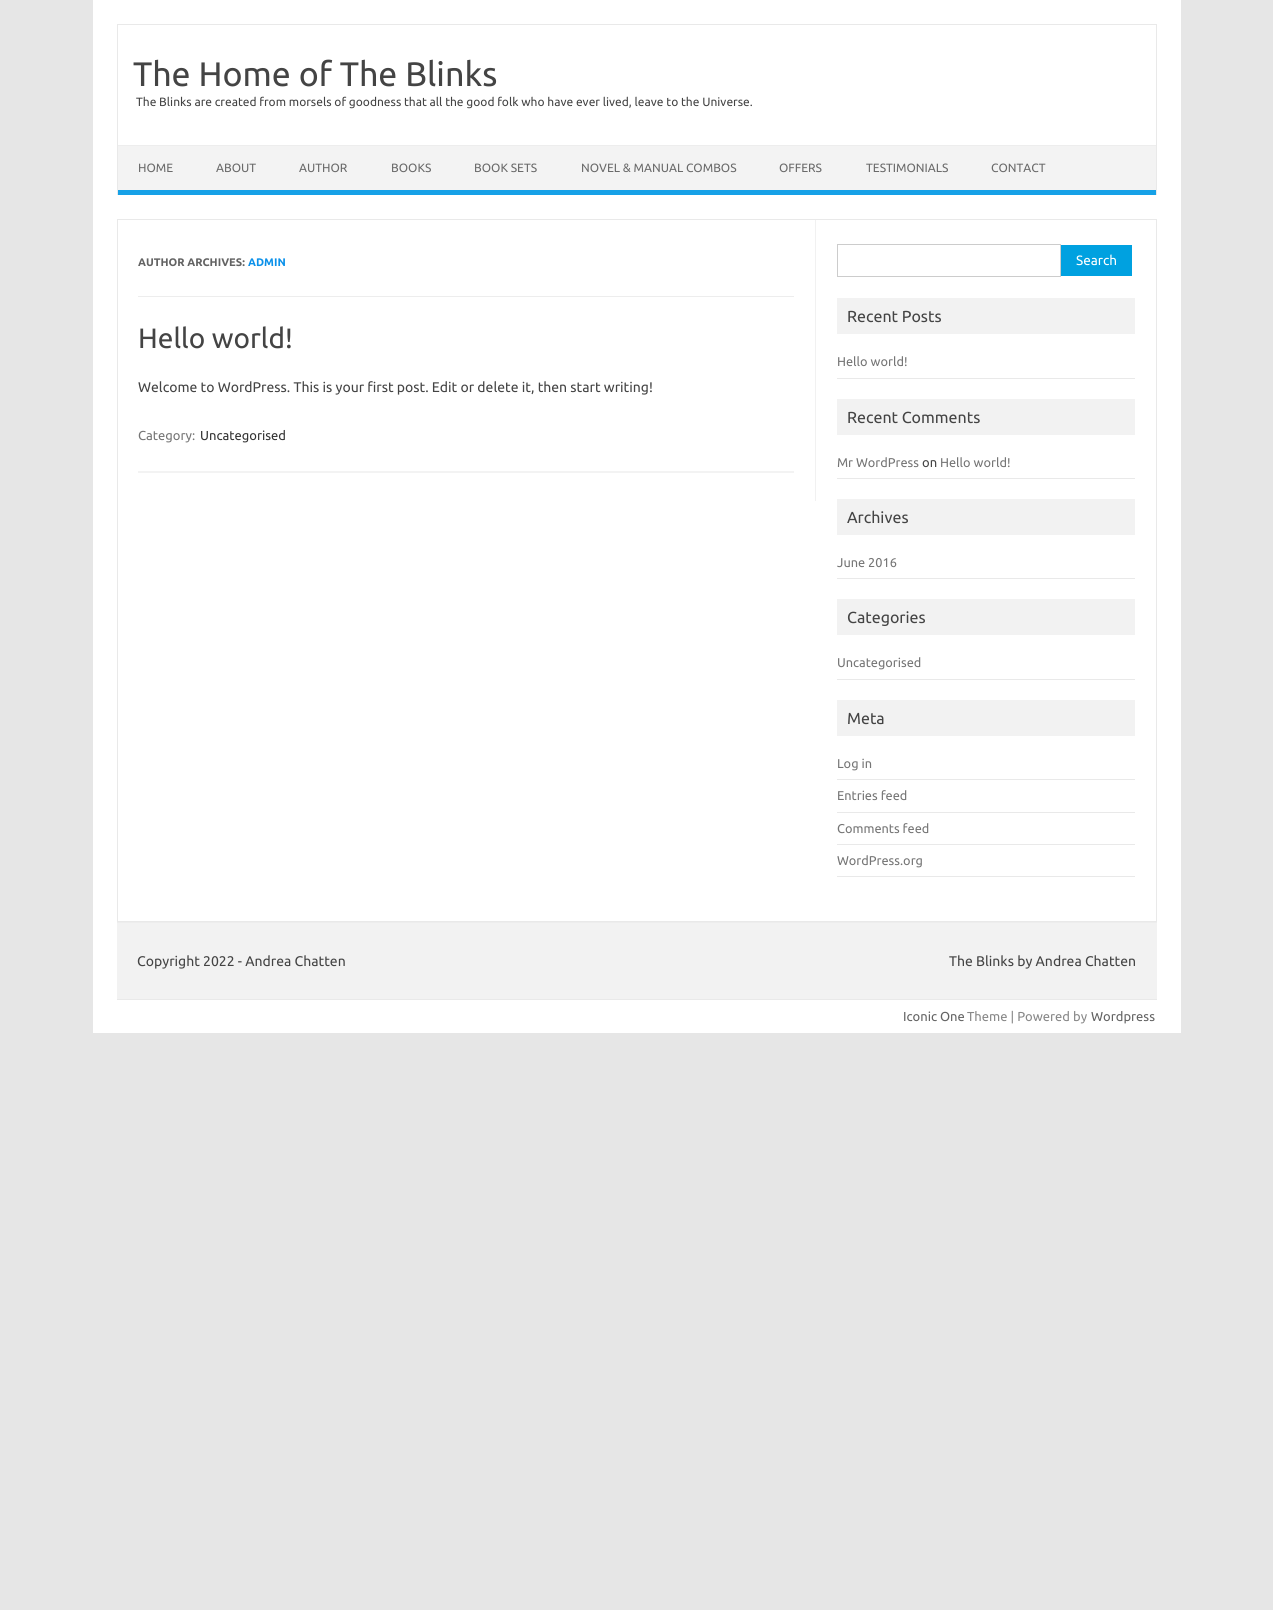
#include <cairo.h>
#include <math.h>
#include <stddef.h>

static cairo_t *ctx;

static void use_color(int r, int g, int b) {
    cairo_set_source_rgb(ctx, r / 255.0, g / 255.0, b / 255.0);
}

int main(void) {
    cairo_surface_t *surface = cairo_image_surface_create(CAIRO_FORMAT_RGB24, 1273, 1610);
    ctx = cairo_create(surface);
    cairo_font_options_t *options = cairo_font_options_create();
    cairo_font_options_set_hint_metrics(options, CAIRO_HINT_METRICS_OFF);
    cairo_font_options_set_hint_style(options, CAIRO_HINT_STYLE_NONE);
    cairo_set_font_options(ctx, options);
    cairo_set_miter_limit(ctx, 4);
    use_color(230, 230, 230);
    cairo_paint(ctx);
    use_color(255, 255, 255);
    cairo_rectangle(ctx, 93, 0, 1088, 1033);
    cairo_fill(ctx);
    use_color(233, 233, 233);
    cairo_rectangle(ctx, 117, 24, 1040, 1);
    cairo_fill(ctx);
    cairo_rectangle(ctx, 1156, 24, 1, 171);
    cairo_fill(ctx);
    cairo_rectangle(ctx, 117, 24, 1, 171);
    cairo_fill(ctx);
    cairo_select_font_face(ctx, "Ubuntu", CAIRO_FONT_SLANT_NORMAL, CAIRO_FONT_WEIGHT_NORMAL);
    cairo_set_font_size(ctx, 34);
    use_color(68, 68, 68);
    cairo_move_to(ctx, 133, 86);
    cairo_show_text(ctx, "The Home of The Blinks");
    cairo_set_font_size(ctx, 12);
    cairo_move_to(ctx, 136, 106);
    cairo_show_text(ctx, "The Blinks are created from morsels of goodness that all the good folk who have ever lived, leave to the Universe.");
    use_color(243, 243, 243);
    cairo_rectangle(ctx, 118, 146, 1038, 44);
    cairo_fill(ctx);
    use_color(237, 237, 237);
    cairo_rectangle(ctx, 118, 145, 1038, 1);
    cairo_fill(ctx);
    use_color(22, 161, 231);
    cairo_rectangle(ctx, 118, 190, 1038, 5);
    cairo_fill(ctx);
    use_color(106, 106, 106);
    cairo_move_to(ctx, 138, 172);
    cairo_show_text(ctx, "HOME");
    cairo_move_to(ctx, 216, 172);
    cairo_show_text(ctx, "ABOUT");
    cairo_move_to(ctx, 299, 172);
    cairo_show_text(ctx, "AUTHOR");
    cairo_move_to(ctx, 391, 172);
    cairo_show_text(ctx, "BOOKS");
    cairo_move_to(ctx, 474, 172);
    cairo_show_text(ctx, "BOOK SETS");
    cairo_move_to(ctx, 581, 172);
    cairo_show_text(ctx, "NOVEL & MANUAL COMBOS");
    cairo_move_to(ctx, 779, 172);
    cairo_show_text(ctx, "OFFERS");
    cairo_move_to(ctx, 866, 172);
    cairo_show_text(ctx, "TESTIMONIALS");
    cairo_move_to(ctx, 991, 172);
    cairo_show_text(ctx, "CONTACT");
    cairo_rectangle(ctx, 117.5, 219.5, 1039, 702);
    use_color(233, 233, 233);
    cairo_set_line_width(ctx, 1);
    cairo_stroke(ctx);
    use_color(241, 241, 241);
    cairo_rectangle(ctx, 815, 220, 1, 281);
    cairo_fill(ctx);
    use_color(237, 237, 237);
    cairo_rectangle(ctx, 138, 296, 656, 1);
    cairo_fill(ctx);
    cairo_select_font_face(ctx, "Ubuntu", CAIRO_FONT_SLANT_NORMAL, CAIRO_FONT_WEIGHT_BOLD);
    cairo_set_font_size(ctx, 11);
    use_color(99, 99, 99);
    cairo_move_to(ctx, 138, 266);
    cairo_show_text(ctx, "AUTHOR ARCHIVES:");
    use_color(11, 145, 234);
    cairo_move_to(ctx, 248, 266);
    cairo_show_text(ctx, "ADMIN");
    use_color(243, 243, 243);
    cairo_rectangle(ctx, 138, 471, 656, 2);
    cairo_fill(ctx);
    cairo_select_font_face(ctx, "Ubuntu", CAIRO_FONT_SLANT_NORMAL, CAIRO_FONT_WEIGHT_NORMAL);
    cairo_set_font_size(ctx, 28);
    use_color(68, 68, 68);
    cairo_move_to(ctx, 138, 348);
    cairo_show_text(ctx, "Hello world!");
    cairo_set_font_size(ctx, 14);
    cairo_move_to(ctx, 138, 392);
    cairo_show_text(ctx, "Welcome to WordPress. This is your first post. Edit or delete it, then start writing!");
    cairo_set_font_size(ctx, 13);
    use_color(117, 117, 117);
    cairo_move_to(ctx, 138, 440);
    cairo_show_text(ctx, "Category:");
    use_color(51, 51, 51);
    cairo_move_to(ctx, 200, 440);
    cairo_show_text(ctx, "Uncategorised");
    cairo_rectangle(ctx, 837.5, 244.5, 223, 32);
    use_color(204, 204, 204);
    cairo_stroke(ctx);
    use_color(0, 161, 224);
    cairo_rectangle(ctx, 1061, 245, 71, 31);
    cairo_fill(ctx);
    cairo_set_font_size(ctx, 13.5);
    use_color(255, 255, 255);
    cairo_move_to(ctx, 1076, 265);
    cairo_show_text(ctx, "Search");
    use_color(242, 242, 242);
    cairo_rectangle(ctx, 837, 298, 298, 36);
    cairo_fill(ctx);
    cairo_set_font_size(ctx, 16);
    use_color(68, 68, 68);
    cairo_move_to(ctx, 847, 322);
    cairo_show_text(ctx, "Recent Posts");
    use_color(233, 233, 233);
    cairo_rectangle(ctx, 837, 378, 298, 1);
    cairo_fill(ctx);
    cairo_set_font_size(ctx, 12.75);
    use_color(117, 117, 117);
    cairo_move_to(ctx, 837, 366);
    cairo_show_text(ctx, "Hello world!");
    use_color(242, 242, 242);
    cairo_rectangle(ctx, 837, 399, 298, 36);
    cairo_fill(ctx);
    cairo_set_font_size(ctx, 16);
    use_color(68, 68, 68);
    cairo_move_to(ctx, 847, 423);
    cairo_show_text(ctx, "Recent Comments");
    use_color(233, 233, 233);
    cairo_rectangle(ctx, 837, 478, 298, 1);
    cairo_fill(ctx);
    cairo_set_font_size(ctx, 12.75);
    use_color(117, 117, 117);
    cairo_move_to(ctx, 837, 467);
    cairo_show_text(ctx, "Mr WordPress");
    cairo_set_font_size(ctx, 13);
    use_color(68, 68, 68);
    cairo_move_to(ctx, 922, 467);
    cairo_show_text(ctx, "on");
    cairo_set_font_size(ctx, 12.75);
    use_color(117, 117, 117);
    cairo_move_to(ctx, 940, 467);
    cairo_show_text(ctx, "Hello world!");
    use_color(242, 242, 242);
    cairo_rectangle(ctx, 837, 499, 298, 36);
    cairo_fill(ctx);
    cairo_set_font_size(ctx, 16);
    use_color(68, 68, 68);
    cairo_move_to(ctx, 847, 523);
    cairo_show_text(ctx, "Archives");
    use_color(233, 233, 233);
    cairo_rectangle(ctx, 837, 578, 298, 1);
    cairo_fill(ctx);
    cairo_set_font_size(ctx, 12.75);
    use_color(117, 117, 117);
    cairo_move_to(ctx, 837, 567);
    cairo_show_text(ctx, "June 2016");
    use_color(242, 242, 242);
    cairo_rectangle(ctx, 837, 599, 298, 36);
    cairo_fill(ctx);
    cairo_set_font_size(ctx, 16);
    use_color(68, 68, 68);
    cairo_move_to(ctx, 847, 623);
    cairo_show_text(ctx, "Categories");
    use_color(233, 233, 233);
    cairo_rectangle(ctx, 837, 679, 298, 1);
    cairo_fill(ctx);
    cairo_set_font_size(ctx, 12.75);
    use_color(117, 117, 117);
    cairo_move_to(ctx, 837, 667);
    cairo_show_text(ctx, "Uncategorised");
    use_color(242, 242, 242);
    cairo_rectangle(ctx, 837, 700, 298, 36);
    cairo_fill(ctx);
    cairo_set_font_size(ctx, 16);
    use_color(68, 68, 68);
    cairo_move_to(ctx, 847, 724);
    cairo_show_text(ctx, "Meta");
    use_color(233, 233, 233);
    cairo_rectangle(ctx, 837, 779, 298, 1);
    cairo_fill(ctx);
    cairo_set_font_size(ctx, 12.75);
    use_color(117, 117, 117);
    cairo_move_to(ctx, 837, 768);
    cairo_show_text(ctx, "Log in");
    use_color(233, 233, 233);
    cairo_rectangle(ctx, 837, 812, 298, 1);
    cairo_fill(ctx);
    use_color(117, 117, 117);
    cairo_move_to(ctx, 837, 800);
    cairo_show_text(ctx, "Entries feed");
    use_color(233, 233, 233);
    cairo_rectangle(ctx, 837, 844, 298, 1);
    cairo_fill(ctx);
    use_color(117, 117, 117);
    cairo_move_to(ctx, 837, 833);
    cairo_show_text(ctx, "Comments feed");
    use_color(233, 233, 233);
    cairo_rectangle(ctx, 837, 876, 298, 1);
    cairo_fill(ctx);
    use_color(117, 117, 117);
    cairo_move_to(ctx, 837, 865);
    cairo_show_text(ctx, "WordPress.org");
    use_color(242, 242, 242);
    cairo_rectangle(ctx, 117, 923, 1040, 76);
    cairo_fill(ctx);
    use_color(237, 237, 237);
    cairo_rectangle(ctx, 117, 922, 1040, 1);
    cairo_fill(ctx);
    use_color(233, 233, 233);
    cairo_rectangle(ctx, 117, 999, 1040, 1);
    cairo_fill(ctx);
    cairo_set_font_size(ctx, 14);
    use_color(68, 68, 68);
    cairo_move_to(ctx, 137, 966);
    cairo_show_text(ctx, "Copyright 2022 - Andrea Chatten");
    cairo_move_to(ctx, 949, 966);
    cairo_show_text(ctx, "The Blinks by Andrea Chatten");
    cairo_set_font_size(ctx, 13);
    use_color(99, 99, 99);
    cairo_move_to(ctx, 903, 1021);
    cairo_show_text(ctx, "Iconic One");
    use_color(136, 136, 136);
    cairo_move_to(ctx, 967, 1021);
    cairo_show_text(ctx, "Theme | Powered by");
    use_color(99, 99, 99);
    cairo_move_to(ctx, 1091, 1021);
    cairo_show_text(ctx, "Wordpress");
    cairo_surface_write_to_png(surface, "result.png");
    cairo_font_options_destroy(options);
    cairo_destroy(ctx);
    cairo_surface_destroy(surface);
    return 0;
}
